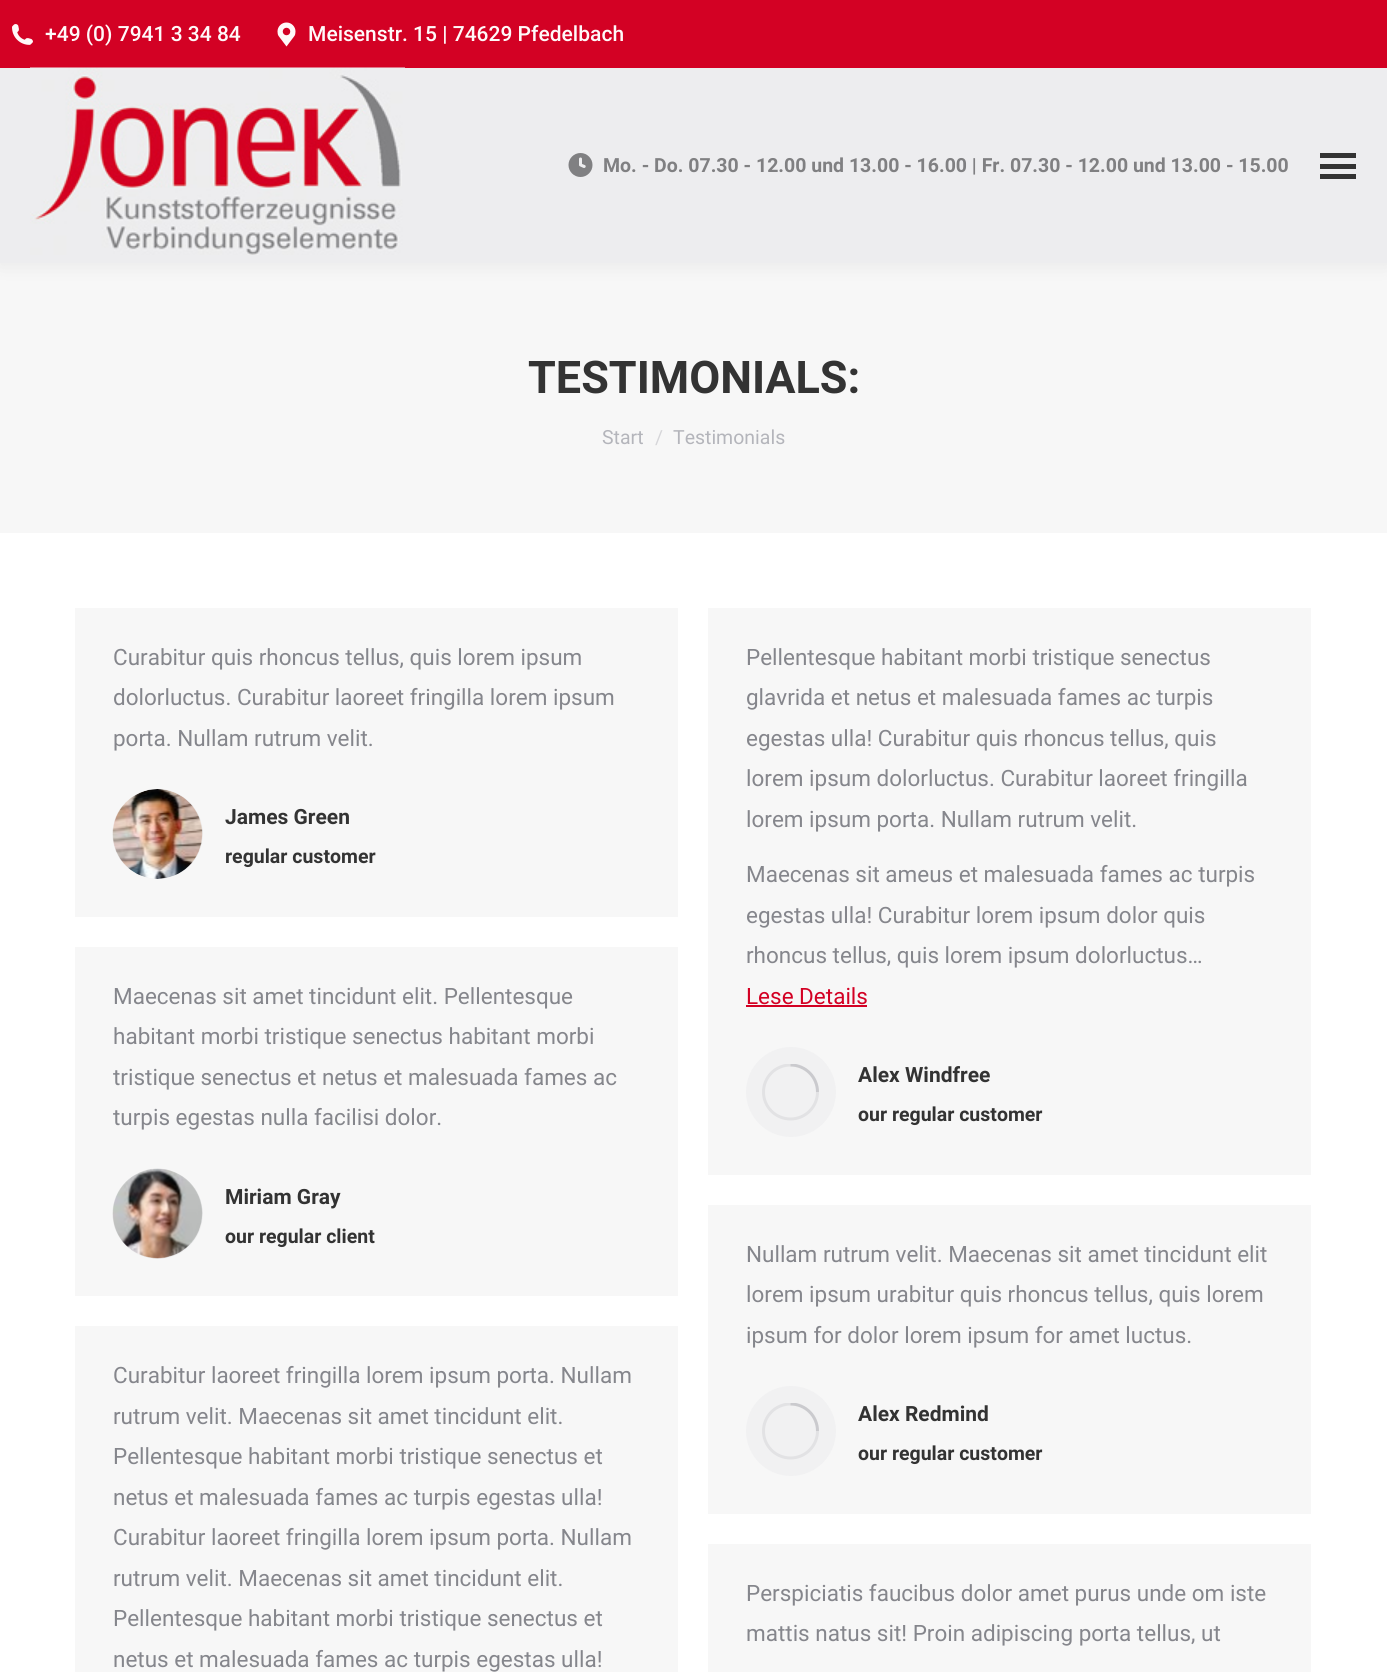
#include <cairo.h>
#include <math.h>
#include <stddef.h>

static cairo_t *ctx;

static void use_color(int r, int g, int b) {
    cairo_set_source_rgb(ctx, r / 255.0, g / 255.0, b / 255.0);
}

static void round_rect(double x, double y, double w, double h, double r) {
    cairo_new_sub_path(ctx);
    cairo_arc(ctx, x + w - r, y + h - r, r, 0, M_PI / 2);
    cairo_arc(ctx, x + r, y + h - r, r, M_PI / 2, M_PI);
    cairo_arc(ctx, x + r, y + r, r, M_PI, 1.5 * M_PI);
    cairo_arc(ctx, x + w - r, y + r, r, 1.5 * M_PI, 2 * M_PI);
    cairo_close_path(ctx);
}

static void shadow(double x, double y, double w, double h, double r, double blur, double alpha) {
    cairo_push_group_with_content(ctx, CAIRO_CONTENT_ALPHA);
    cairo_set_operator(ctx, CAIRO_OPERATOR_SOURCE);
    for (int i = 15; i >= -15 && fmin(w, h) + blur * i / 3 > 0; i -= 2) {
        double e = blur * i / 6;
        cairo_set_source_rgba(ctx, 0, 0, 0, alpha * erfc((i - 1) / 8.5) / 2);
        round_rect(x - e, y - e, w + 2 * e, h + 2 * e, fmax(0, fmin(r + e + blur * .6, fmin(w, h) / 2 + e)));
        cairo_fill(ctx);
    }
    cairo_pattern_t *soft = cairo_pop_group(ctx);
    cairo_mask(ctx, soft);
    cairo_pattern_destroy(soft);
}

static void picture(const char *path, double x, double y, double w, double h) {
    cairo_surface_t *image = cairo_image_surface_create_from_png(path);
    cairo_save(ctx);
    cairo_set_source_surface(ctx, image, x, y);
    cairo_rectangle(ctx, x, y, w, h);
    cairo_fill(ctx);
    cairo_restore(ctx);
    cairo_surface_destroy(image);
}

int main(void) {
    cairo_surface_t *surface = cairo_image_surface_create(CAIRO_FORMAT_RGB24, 1387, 1672);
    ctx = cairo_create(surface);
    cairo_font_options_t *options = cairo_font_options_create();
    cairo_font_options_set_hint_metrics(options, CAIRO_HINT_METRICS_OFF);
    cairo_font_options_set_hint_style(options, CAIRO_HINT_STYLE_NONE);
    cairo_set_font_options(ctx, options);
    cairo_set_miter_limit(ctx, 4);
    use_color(255, 255, 255);
    cairo_paint(ctx);
    use_color(247, 247, 247);
    cairo_rectangle(ctx, 0, 263, 1387, 270);
    cairo_fill(ctx);
    use_color(0, 0, 0);
    shadow(-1, -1, 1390, 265, 0, 11, 0.07);
    use_color(237, 237, 239);
    cairo_rectangle(ctx, 0, 68, 1387, 195);
    cairo_fill(ctx);
    use_color(211, 1, 36);
    cairo_rectangle(ctx, 0, 0, 1387, 68);
    cairo_fill(ctx);
    picture("img1.png", 12, 24, 21, 21);
    cairo_select_font_face(ctx, "Roboto Medium", CAIRO_FONT_SLANT_NORMAL, CAIRO_FONT_WEIGHT_NORMAL);
    cairo_set_font_size(ctx, 21);
    use_color(255, 249, 249);
    cairo_move_to(ctx, 45, 41);
    cairo_show_text(ctx, "+49 (0) 7941 3 34 84");
    picture("img2.png", 277, 22, 19, 25);
    cairo_move_to(ctx, 308, 41);
    cairo_show_text(ctx, "Meisenstr. 15 | 74629 Pfedelbach");
    picture("img3.png", 30, 67, 375, 188);
    picture("img4.png", 568, 153, 25, 24);
    cairo_select_font_face(ctx, "Roboto", CAIRO_FONT_SLANT_NORMAL, CAIRO_FONT_WEIGHT_BOLD);
    cairo_set_font_size(ctx, 19.5);
    use_color(128, 128, 130);
    cairo_move_to(ctx, 603, 172);
    cairo_show_text(ctx, "Mo. - Do. 07.30 - 12.00 und 13.00 - 16.00 | Fr. 07.30 - 12.00 und 13.00 - 15.00");
    use_color(51, 51, 51);
    cairo_rectangle(ctx, 1320, 153, 36, 5);
    cairo_fill(ctx);
    cairo_rectangle(ctx, 1320, 164, 36, 5);
    cairo_fill(ctx);
    cairo_rectangle(ctx, 1320, 174, 36, 5);
    cairo_fill(ctx);
    cairo_set_font_size(ctx, 45);
    cairo_move_to(ctx, 528, 393);
    cairo_show_text(ctx, "TESTIMONIALS:");
    cairo_select_font_face(ctx, "Roboto", CAIRO_FONT_SLANT_NORMAL, CAIRO_FONT_WEIGHT_NORMAL);
    cairo_set_font_size(ctx, 19.5);
    use_color(180, 181, 187);
    cairo_move_to(ctx, 602, 444);
    cairo_show_text(ctx, "Start");
    use_color(214, 214, 217);
    cairo_move_to(ctx, 655, 444);
    cairo_show_text(ctx, "/");
    use_color(180, 181, 187);
    cairo_move_to(ctx, 673, 444);
    cairo_show_text(ctx, "Testimonials");
    use_color(247, 247, 247);
    cairo_rectangle(ctx, 75, 608, 603, 309);
    cairo_fill(ctx);
    cairo_set_font_size(ctx, 22.5);
    use_color(133, 134, 140);
    cairo_move_to(ctx, 113, 665);
    cairo_show_text(ctx, "Curabitur quis rhoncus tellus, quis lorem ipsum");
    cairo_move_to(ctx, 113, 705);
    cairo_show_text(ctx, "dolorluctus. Curabitur laoreet fringilla lorem ipsum");
    cairo_move_to(ctx, 113, 746);
    cairo_show_text(ctx, "porta. Nullam rutrum velit.");
    use_color(241, 241, 242);
    cairo_new_path(ctx);
    cairo_arc(ctx, 158, 834, 45, 0, 2 * M_PI);
    cairo_fill(ctx);
    picture("img5.png", 112, 789, 91, 90);
    cairo_select_font_face(ctx, "Roboto", CAIRO_FONT_SLANT_NORMAL, CAIRO_FONT_WEIGHT_BOLD);
    cairo_set_font_size(ctx, 21);
    use_color(51, 51, 51);
    cairo_move_to(ctx, 225, 824);
    cairo_show_text(ctx, "James Green");
    cairo_set_font_size(ctx, 19.5);
    cairo_move_to(ctx, 225, 863);
    cairo_show_text(ctx, "regular customer");
    use_color(247, 247, 247);
    cairo_rectangle(ctx, 708, 608, 603, 567);
    cairo_fill(ctx);
    cairo_select_font_face(ctx, "Roboto", CAIRO_FONT_SLANT_NORMAL, CAIRO_FONT_WEIGHT_NORMAL);
    cairo_set_font_size(ctx, 22.5);
    use_color(133, 134, 140);
    cairo_move_to(ctx, 746, 665);
    cairo_show_text(ctx, "Pellentesque habitant morbi tristique senectus");
    cairo_move_to(ctx, 746, 705);
    cairo_show_text(ctx, "glavrida et netus et malesuada fames ac turpis");
    cairo_move_to(ctx, 746, 746);
    cairo_show_text(ctx, "egestas ulla! Curabitur quis rhoncus tellus, quis");
    cairo_move_to(ctx, 746, 786);
    cairo_show_text(ctx, "lorem ipsum dolorluctus. Curabitur laoreet fringilla");
    cairo_move_to(ctx, 746, 827);
    cairo_show_text(ctx, "lorem ipsum porta. Nullam rutrum velit.");
    cairo_move_to(ctx, 746, 882);
    cairo_show_text(ctx, "Maecenas sit ameus et malesuada fames ac turpis");
    cairo_move_to(ctx, 746, 923);
    cairo_show_text(ctx, "egestas ulla! Curabitur lorem ipsum dolor quis");
    cairo_move_to(ctx, 746, 963);
    cairo_show_text(ctx, "rhoncus tellus, quis lorem ipsum dolorluctus…");
    use_color(211, 0, 35);
    cairo_move_to(ctx, 746, 1004);
    cairo_show_text(ctx, "Lese Details");
    cairo_rectangle(ctx, 746, 1005, 121, 2);
    cairo_fill(ctx);
    use_color(241, 241, 242);
    cairo_arc(ctx, 791, 1092, 45, 0, 2 * M_PI);
    cairo_fill(ctx);
    cairo_save(ctx);
    cairo_rectangle(ctx, 762, 1064, 57, 57);
    cairo_clip(ctx);
    cairo_arc(ctx, 790.5, 1092, 27, 0, 2 * M_PI);
    use_color(226, 226, 228);
    cairo_set_line_width(ctx, 3);
    cairo_stroke(ctx);
    cairo_new_path(ctx);
    cairo_move_to(ctx, 817.5, 1092);
    cairo_curve_to(ctx, 817.5, 1077, 805.5, 1065, 790.5, 1065);
    cairo_set_source_rgba(ctx, 0.522, 0.525, 0.549, 0.25);
    cairo_stroke(ctx);
    cairo_restore(ctx);
    cairo_select_font_face(ctx, "Roboto", CAIRO_FONT_SLANT_NORMAL, CAIRO_FONT_WEIGHT_BOLD);
    cairo_set_font_size(ctx, 21);
    use_color(51, 51, 51);
    cairo_move_to(ctx, 858, 1082);
    cairo_show_text(ctx, "Alex Windfree");
    cairo_set_font_size(ctx, 19.5);
    cairo_move_to(ctx, 858, 1121);
    cairo_show_text(ctx, "our regular customer");
    use_color(247, 247, 247);
    cairo_rectangle(ctx, 75, 947, 603, 349);
    cairo_fill(ctx);
    cairo_select_font_face(ctx, "Roboto", CAIRO_FONT_SLANT_NORMAL, CAIRO_FONT_WEIGHT_NORMAL);
    cairo_set_font_size(ctx, 22.5);
    use_color(133, 134, 140);
    cairo_move_to(ctx, 113, 1004);
    cairo_show_text(ctx, "Maecenas sit amet tincidunt elit. Pellentesque");
    cairo_move_to(ctx, 113, 1044);
    cairo_show_text(ctx, "habitant morbi tristique senectus habitant morbi");
    cairo_move_to(ctx, 113, 1085);
    cairo_show_text(ctx, "tristique senectus et netus et malesuada fames ac");
    cairo_move_to(ctx, 113, 1125);
    cairo_show_text(ctx, "turpis egestas nulla facilisi dolor.");
    use_color(241, 241, 242);
    cairo_new_path(ctx);
    cairo_arc(ctx, 158, 1214, 45, 0, 2 * M_PI);
    cairo_fill(ctx);
    picture("img6.png", 112, 1168, 91, 91);
    cairo_select_font_face(ctx, "Roboto", CAIRO_FONT_SLANT_NORMAL, CAIRO_FONT_WEIGHT_BOLD);
    cairo_set_font_size(ctx, 21);
    use_color(51, 51, 51);
    cairo_move_to(ctx, 225, 1204);
    cairo_show_text(ctx, "Miriam Gray");
    cairo_set_font_size(ctx, 19.5);
    cairo_move_to(ctx, 225, 1243);
    cairo_show_text(ctx, "our regular client");
    use_color(247, 247, 247);
    cairo_rectangle(ctx, 75, 1326, 603, 346);
    cairo_fill(ctx);
    cairo_select_font_face(ctx, "Roboto", CAIRO_FONT_SLANT_NORMAL, CAIRO_FONT_WEIGHT_NORMAL);
    cairo_set_font_size(ctx, 22.5);
    use_color(133, 134, 140);
    cairo_move_to(ctx, 113, 1383);
    cairo_show_text(ctx, "Curabitur laoreet fringilla lorem ipsum porta. Nullam");
    cairo_move_to(ctx, 113, 1424);
    cairo_show_text(ctx, "rutrum velit. Maecenas sit amet tincidunt elit.");
    cairo_move_to(ctx, 113, 1464);
    cairo_show_text(ctx, "Pellentesque habitant morbi tristique senectus et");
    cairo_move_to(ctx, 113, 1505);
    cairo_show_text(ctx, "netus et malesuada fames ac turpis egestas ulla!");
    cairo_move_to(ctx, 113, 1545);
    cairo_show_text(ctx, "Curabitur laoreet fringilla lorem ipsum porta. Nullam");
    cairo_move_to(ctx, 113, 1586);
    cairo_show_text(ctx, "rutrum velit. Maecenas sit amet tincidunt elit.");
    cairo_move_to(ctx, 113, 1626);
    cairo_show_text(ctx, "Pellentesque habitant morbi tristique senectus et");
    cairo_move_to(ctx, 113, 1667);
    cairo_show_text(ctx, "netus et malesuada fames ac turpis egestas ulla!");
    use_color(247, 247, 247);
    cairo_rectangle(ctx, 708, 1205, 603, 309);
    cairo_fill(ctx);
    use_color(133, 134, 140);
    cairo_move_to(ctx, 746, 1262);
    cairo_show_text(ctx, "Nullam rutrum velit. Maecenas sit amet tincidunt elit");
    cairo_move_to(ctx, 746, 1302);
    cairo_show_text(ctx, "lorem ipsum urabitur quis rhoncus tellus, quis lorem");
    cairo_move_to(ctx, 746, 1343);
    cairo_show_text(ctx, "ipsum for dolor lorem ipsum for amet luctus.");
    use_color(241, 241, 242);
    cairo_new_path(ctx);
    cairo_arc(ctx, 791, 1431, 45, 0, 2 * M_PI);
    cairo_fill(ctx);
    cairo_save(ctx);
    cairo_rectangle(ctx, 762, 1403, 57, 57);
    cairo_clip(ctx);
    cairo_arc(ctx, 790.5, 1431, 27, 0, 2 * M_PI);
    use_color(226, 226, 228);
    cairo_set_line_width(ctx, 3);
    cairo_stroke(ctx);
    cairo_new_path(ctx);
    cairo_move_to(ctx, 817.5, 1431);
    cairo_curve_to(ctx, 817.5, 1416, 805.5, 1404, 790.5, 1404);
    cairo_set_source_rgba(ctx, 0.522, 0.525, 0.549, 0.25);
    cairo_stroke(ctx);
    cairo_restore(ctx);
    cairo_select_font_face(ctx, "Roboto", CAIRO_FONT_SLANT_NORMAL, CAIRO_FONT_WEIGHT_BOLD);
    cairo_set_font_size(ctx, 21);
    use_color(51, 51, 51);
    cairo_move_to(ctx, 858, 1421);
    cairo_show_text(ctx, "Alex Redmind");
    cairo_set_font_size(ctx, 19.5);
    cairo_move_to(ctx, 858, 1460);
    cairo_show_text(ctx, "our regular customer");
    use_color(247, 247, 247);
    cairo_rectangle(ctx, 708, 1544, 603, 128);
    cairo_fill(ctx);
    cairo_select_font_face(ctx, "Roboto", CAIRO_FONT_SLANT_NORMAL, CAIRO_FONT_WEIGHT_NORMAL);
    cairo_set_font_size(ctx, 22.5);
    use_color(133, 134, 140);
    cairo_move_to(ctx, 746, 1601);
    cairo_show_text(ctx, "Perspiciatis faucibus dolor amet purus unde om iste");
    cairo_move_to(ctx, 746, 1641);
    cairo_show_text(ctx, "mattis natus sit! Proin adipiscing porta tellus, ut");
    cairo_surface_write_to_png(surface, "result.png");
    cairo_font_options_destroy(options);
    cairo_destroy(ctx);
    cairo_surface_destroy(surface);
    return 0;
}
